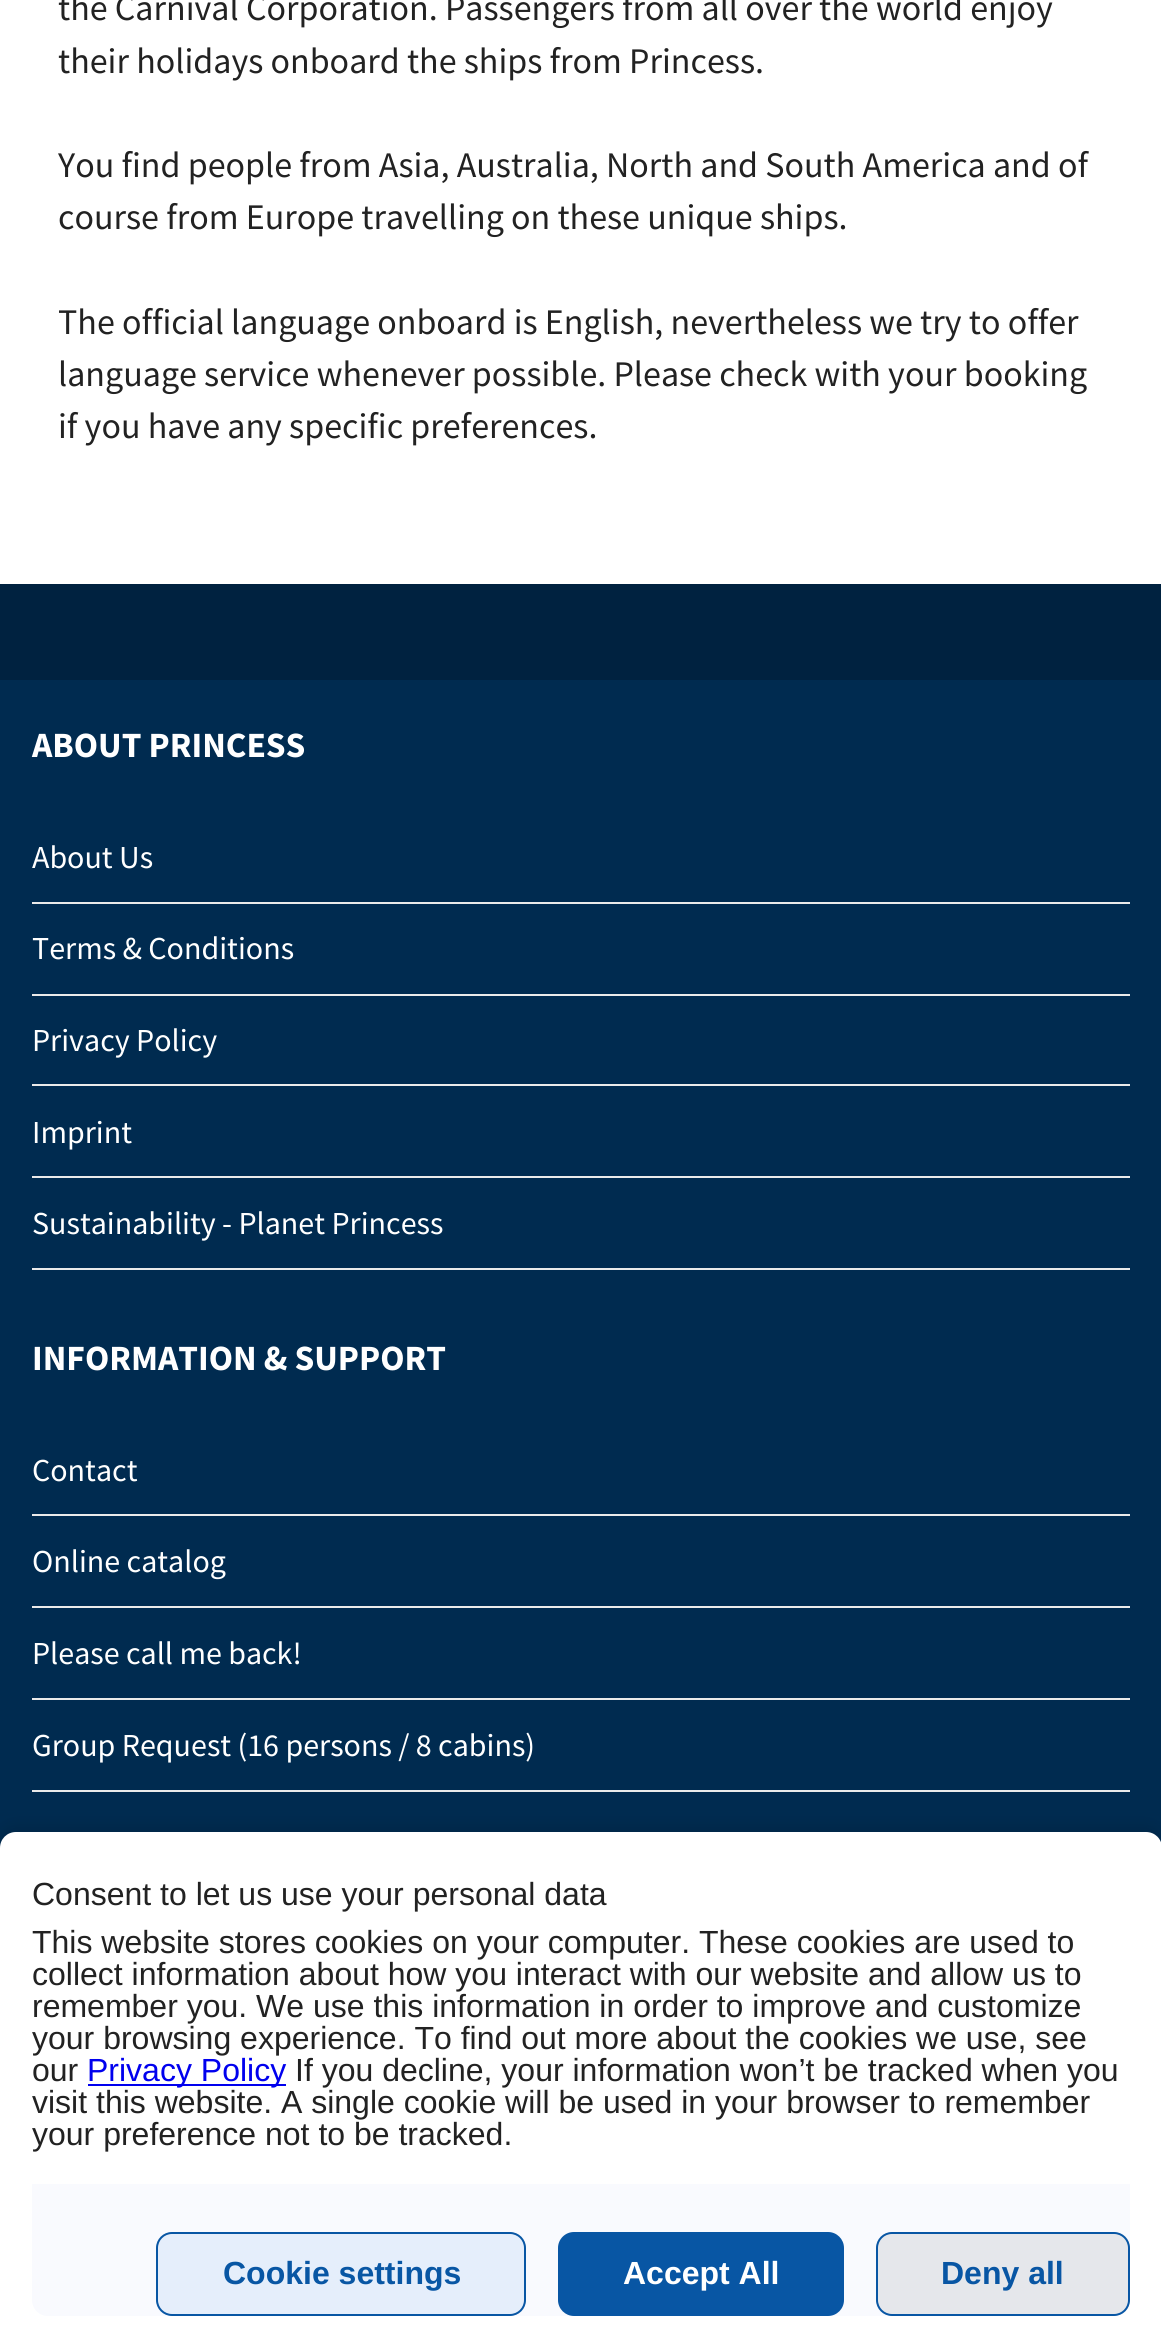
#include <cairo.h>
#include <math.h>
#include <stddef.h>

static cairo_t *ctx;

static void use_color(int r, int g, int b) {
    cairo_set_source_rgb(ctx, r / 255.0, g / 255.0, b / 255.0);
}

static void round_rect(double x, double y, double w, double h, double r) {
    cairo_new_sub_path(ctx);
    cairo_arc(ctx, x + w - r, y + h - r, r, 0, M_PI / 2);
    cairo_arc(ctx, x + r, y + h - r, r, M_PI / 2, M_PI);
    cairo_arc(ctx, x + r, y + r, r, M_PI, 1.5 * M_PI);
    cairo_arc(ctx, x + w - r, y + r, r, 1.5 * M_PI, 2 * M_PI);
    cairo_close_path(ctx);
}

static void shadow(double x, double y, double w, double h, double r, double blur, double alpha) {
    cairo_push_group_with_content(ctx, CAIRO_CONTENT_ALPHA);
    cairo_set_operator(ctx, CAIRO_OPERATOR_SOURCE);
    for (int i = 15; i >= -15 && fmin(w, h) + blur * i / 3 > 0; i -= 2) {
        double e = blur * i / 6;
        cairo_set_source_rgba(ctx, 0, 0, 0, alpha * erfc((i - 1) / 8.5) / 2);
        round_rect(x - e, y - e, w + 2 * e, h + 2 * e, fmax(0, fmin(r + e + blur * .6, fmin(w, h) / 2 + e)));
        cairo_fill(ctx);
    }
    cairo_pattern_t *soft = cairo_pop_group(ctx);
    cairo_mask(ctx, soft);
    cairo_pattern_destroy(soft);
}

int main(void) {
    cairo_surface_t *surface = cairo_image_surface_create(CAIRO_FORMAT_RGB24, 1161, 2347);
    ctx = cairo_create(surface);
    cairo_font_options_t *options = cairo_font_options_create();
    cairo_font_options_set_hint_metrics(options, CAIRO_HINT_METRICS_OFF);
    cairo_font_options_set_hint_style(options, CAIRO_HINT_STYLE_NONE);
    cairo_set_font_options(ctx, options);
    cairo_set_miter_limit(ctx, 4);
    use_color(255, 255, 255);
    cairo_paint(ctx);
    cairo_select_font_face(ctx, "Source Sans Pro", CAIRO_FONT_SLANT_NORMAL, CAIRO_FONT_WEIGHT_NORMAL);
    cairo_set_font_size(ctx, 36);
    use_color(34, 34, 34);
    cairo_move_to(ctx, 58, 20);
    cairo_show_text(ctx, "the Carnival Corporation. Passengers from all over the world enjoy");
    cairo_move_to(ctx, 58, 73);
    cairo_show_text(ctx, "their holidays onboard the ships from Princess.");
    cairo_move_to(ctx, 58, 177);
    cairo_show_text(ctx, "You find people from Asia, Australia, North and South America and of");
    cairo_move_to(ctx, 58, 229);
    cairo_show_text(ctx, "course from Europe travelling on these unique ships.");
    cairo_move_to(ctx, 58, 334);
    cairo_show_text(ctx, "The official language onboard is English, nevertheless we try to offer");
    cairo_move_to(ctx, 58, 386);
    cairo_show_text(ctx, "language service whenever possible. Please check with your booking");
    cairo_move_to(ctx, 58, 438);
    cairo_show_text(ctx, "if you have any specific preferences.");
    use_color(0, 43, 80);
    cairo_rectangle(ctx, 0, 680, 1161, 1168);
    cairo_fill(ctx);
    use_color(0, 34, 64);
    cairo_rectangle(ctx, 0, 584, 1161, 96);
    cairo_fill(ctx);
    cairo_select_font_face(ctx, "Source Sans Pro", CAIRO_FONT_SLANT_NORMAL, CAIRO_FONT_WEIGHT_BOLD);
    cairo_set_font_size(ctx, 35.5);
    use_color(255, 255, 255);
    cairo_move_to(ctx, 32, 757);
    cairo_show_text(ctx, "ABOUT PRINCESS");
    use_color(234, 234, 234);
    cairo_rectangle(ctx, 32, 902, 1098, 2);
    cairo_fill(ctx);
    cairo_select_font_face(ctx, "Source Sans Pro", CAIRO_FONT_SLANT_NORMAL, CAIRO_FONT_WEIGHT_NORMAL);
    cairo_set_font_size(ctx, 32);
    use_color(255, 255, 255);
    cairo_move_to(ctx, 32, 868);
    cairo_show_text(ctx, "About Us");
    use_color(234, 234, 234);
    cairo_rectangle(ctx, 32, 994, 1098, 2);
    cairo_fill(ctx);
    use_color(255, 255, 255);
    cairo_move_to(ctx, 32, 959);
    cairo_show_text(ctx, "Terms & Conditions");
    use_color(234, 234, 234);
    cairo_rectangle(ctx, 32, 1084, 1098, 2);
    cairo_fill(ctx);
    use_color(255, 255, 255);
    cairo_move_to(ctx, 32, 1051);
    cairo_show_text(ctx, "Privacy Policy");
    use_color(234, 234, 234);
    cairo_rectangle(ctx, 32, 1176, 1098, 2);
    cairo_fill(ctx);
    use_color(255, 255, 255);
    cairo_move_to(ctx, 32, 1143);
    cairo_show_text(ctx, "Imprint");
    use_color(234, 234, 234);
    cairo_rectangle(ctx, 32, 1268, 1098, 2);
    cairo_fill(ctx);
    use_color(255, 255, 255);
    cairo_move_to(ctx, 32, 1234);
    cairo_show_text(ctx, "Sustainability - Planet Princess");
    cairo_select_font_face(ctx, "Source Sans Pro", CAIRO_FONT_SLANT_NORMAL, CAIRO_FONT_WEIGHT_BOLD);
    cairo_set_font_size(ctx, 35.5);
    cairo_move_to(ctx, 32, 1370);
    cairo_show_text(ctx, "INFORMATION & SUPPORT");
    use_color(234, 234, 234);
    cairo_rectangle(ctx, 32, 1514, 1098, 2);
    cairo_fill(ctx);
    cairo_select_font_face(ctx, "Source Sans Pro", CAIRO_FONT_SLANT_NORMAL, CAIRO_FONT_WEIGHT_NORMAL);
    cairo_set_font_size(ctx, 32);
    use_color(255, 255, 255);
    cairo_move_to(ctx, 32, 1481);
    cairo_show_text(ctx, "Contact");
    use_color(234, 234, 234);
    cairo_rectangle(ctx, 32, 1606, 1098, 2);
    cairo_fill(ctx);
    use_color(255, 255, 255);
    cairo_move_to(ctx, 32, 1572);
    cairo_show_text(ctx, "Online catalog");
    use_color(234, 234, 234);
    cairo_rectangle(ctx, 32, 1698, 1098, 2);
    cairo_fill(ctx);
    use_color(255, 255, 255);
    cairo_move_to(ctx, 32, 1664);
    cairo_show_text(ctx, "Please call me back!");
    use_color(234, 234, 234);
    cairo_rectangle(ctx, 32, 1790, 1098, 2);
    cairo_fill(ctx);
    use_color(255, 255, 255);
    cairo_move_to(ctx, 32, 1756);
    cairo_show_text(ctx, "Group Request (16 persons / 8 cabins)");
    use_color(0, 0, 0);
    shadow(0, 1828, 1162, 516, 16, 8, 0.13);
    use_color(255, 255, 255);
    cairo_new_path(ctx);
    cairo_move_to(ctx, 16, 1832);
    cairo_line_to(ctx, 1146, 1832);
    cairo_curve_to(ctx, 1155, 1832, 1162, 1839, 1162, 1848);
    cairo_line_to(ctx, 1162, 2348);
    cairo_line_to(ctx, 0, 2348);
    cairo_line_to(ctx, 0, 1848);
    cairo_curve_to(ctx, 0, 1839, 7, 1832, 16, 1832);
    cairo_close_path(ctx);
    cairo_fill(ctx);
    cairo_select_font_face(ctx, "Liberation Sans", CAIRO_FONT_SLANT_NORMAL, CAIRO_FONT_WEIGHT_NORMAL);
    use_color(34, 34, 34);
    cairo_move_to(ctx, 32, 1905);
    cairo_show_text(ctx, "Consent to let us use your personal data");
    cairo_move_to(ctx, 32, 1953);
    cairo_show_text(ctx, "This website stores cookies on your computer. These cookies are used to");
    cairo_move_to(ctx, 32, 1985);
    cairo_show_text(ctx, "collect information about how you interact with our website and allow us to");
    cairo_move_to(ctx, 32, 2017);
    cairo_show_text(ctx, "remember you. We use this information in order to improve and customize");
    cairo_move_to(ctx, 32, 2049);
    cairo_show_text(ctx, "your browsing experience. To find out more about the cookies we use, see");
    cairo_move_to(ctx, 32, 2081);
    cairo_show_text(ctx, "our");
    use_color(0, 0, 238);
    cairo_rectangle(ctx, 88, 2084, 198, 2);
    cairo_fill(ctx);
    cairo_move_to(ctx, 87, 2081);
    cairo_show_text(ctx, "Privacy Policy");
    use_color(34, 34, 34);
    cairo_move_to(ctx, 295, 2081);
    cairo_show_text(ctx, "If you decline, your information won’t be tracked when you");
    cairo_move_to(ctx, 32, 2113);
    cairo_show_text(ctx, "visit this website. A single cookie will be used in your browser to remember");
    cairo_move_to(ctx, 32, 2145);
    cairo_show_text(ctx, "your preference not to be tracked.");
    use_color(249, 250, 254);
    cairo_new_path(ctx);
    cairo_move_to(ctx, 32, 2184);
    cairo_line_to(ctx, 1130, 2184);
    cairo_line_to(ctx, 1130, 2300);
    cairo_curve_to(ctx, 1130, 2309, 1123, 2316, 1114, 2316);
    cairo_line_to(ctx, 48, 2316);
    cairo_curve_to(ctx, 39, 2316, 32, 2309, 32, 2300);
    cairo_close_path(ctx);
    cairo_fill(ctx);
    use_color(229, 238, 251);
    round_rect(157, 2233, 368, 82, 15);
    cairo_fill_preserve(ctx);
    use_color(8, 86, 164);
    cairo_stroke(ctx);
    cairo_select_font_face(ctx, "Liberation Sans", CAIRO_FONT_SLANT_NORMAL, CAIRO_FONT_WEIGHT_BOLD);
    cairo_move_to(ctx, 223, 2284);
    cairo_show_text(ctx, "Cookie settings");
    round_rect(558, 2232, 286, 84, 16);
    cairo_fill(ctx);
    use_color(255, 255, 255);
    cairo_move_to(ctx, 623, 2284);
    cairo_show_text(ctx, "Accept All");
    use_color(229, 231, 235);
    round_rect(877, 2233, 252, 82, 15);
    cairo_fill_preserve(ctx);
    use_color(8, 86, 164);
    cairo_stroke(ctx);
    cairo_move_to(ctx, 941, 2284);
    cairo_show_text(ctx, "Deny all");
    cairo_surface_write_to_png(surface, "result.png");
    cairo_font_options_destroy(options);
    cairo_destroy(ctx);
    cairo_surface_destroy(surface);
    return 0;
}
